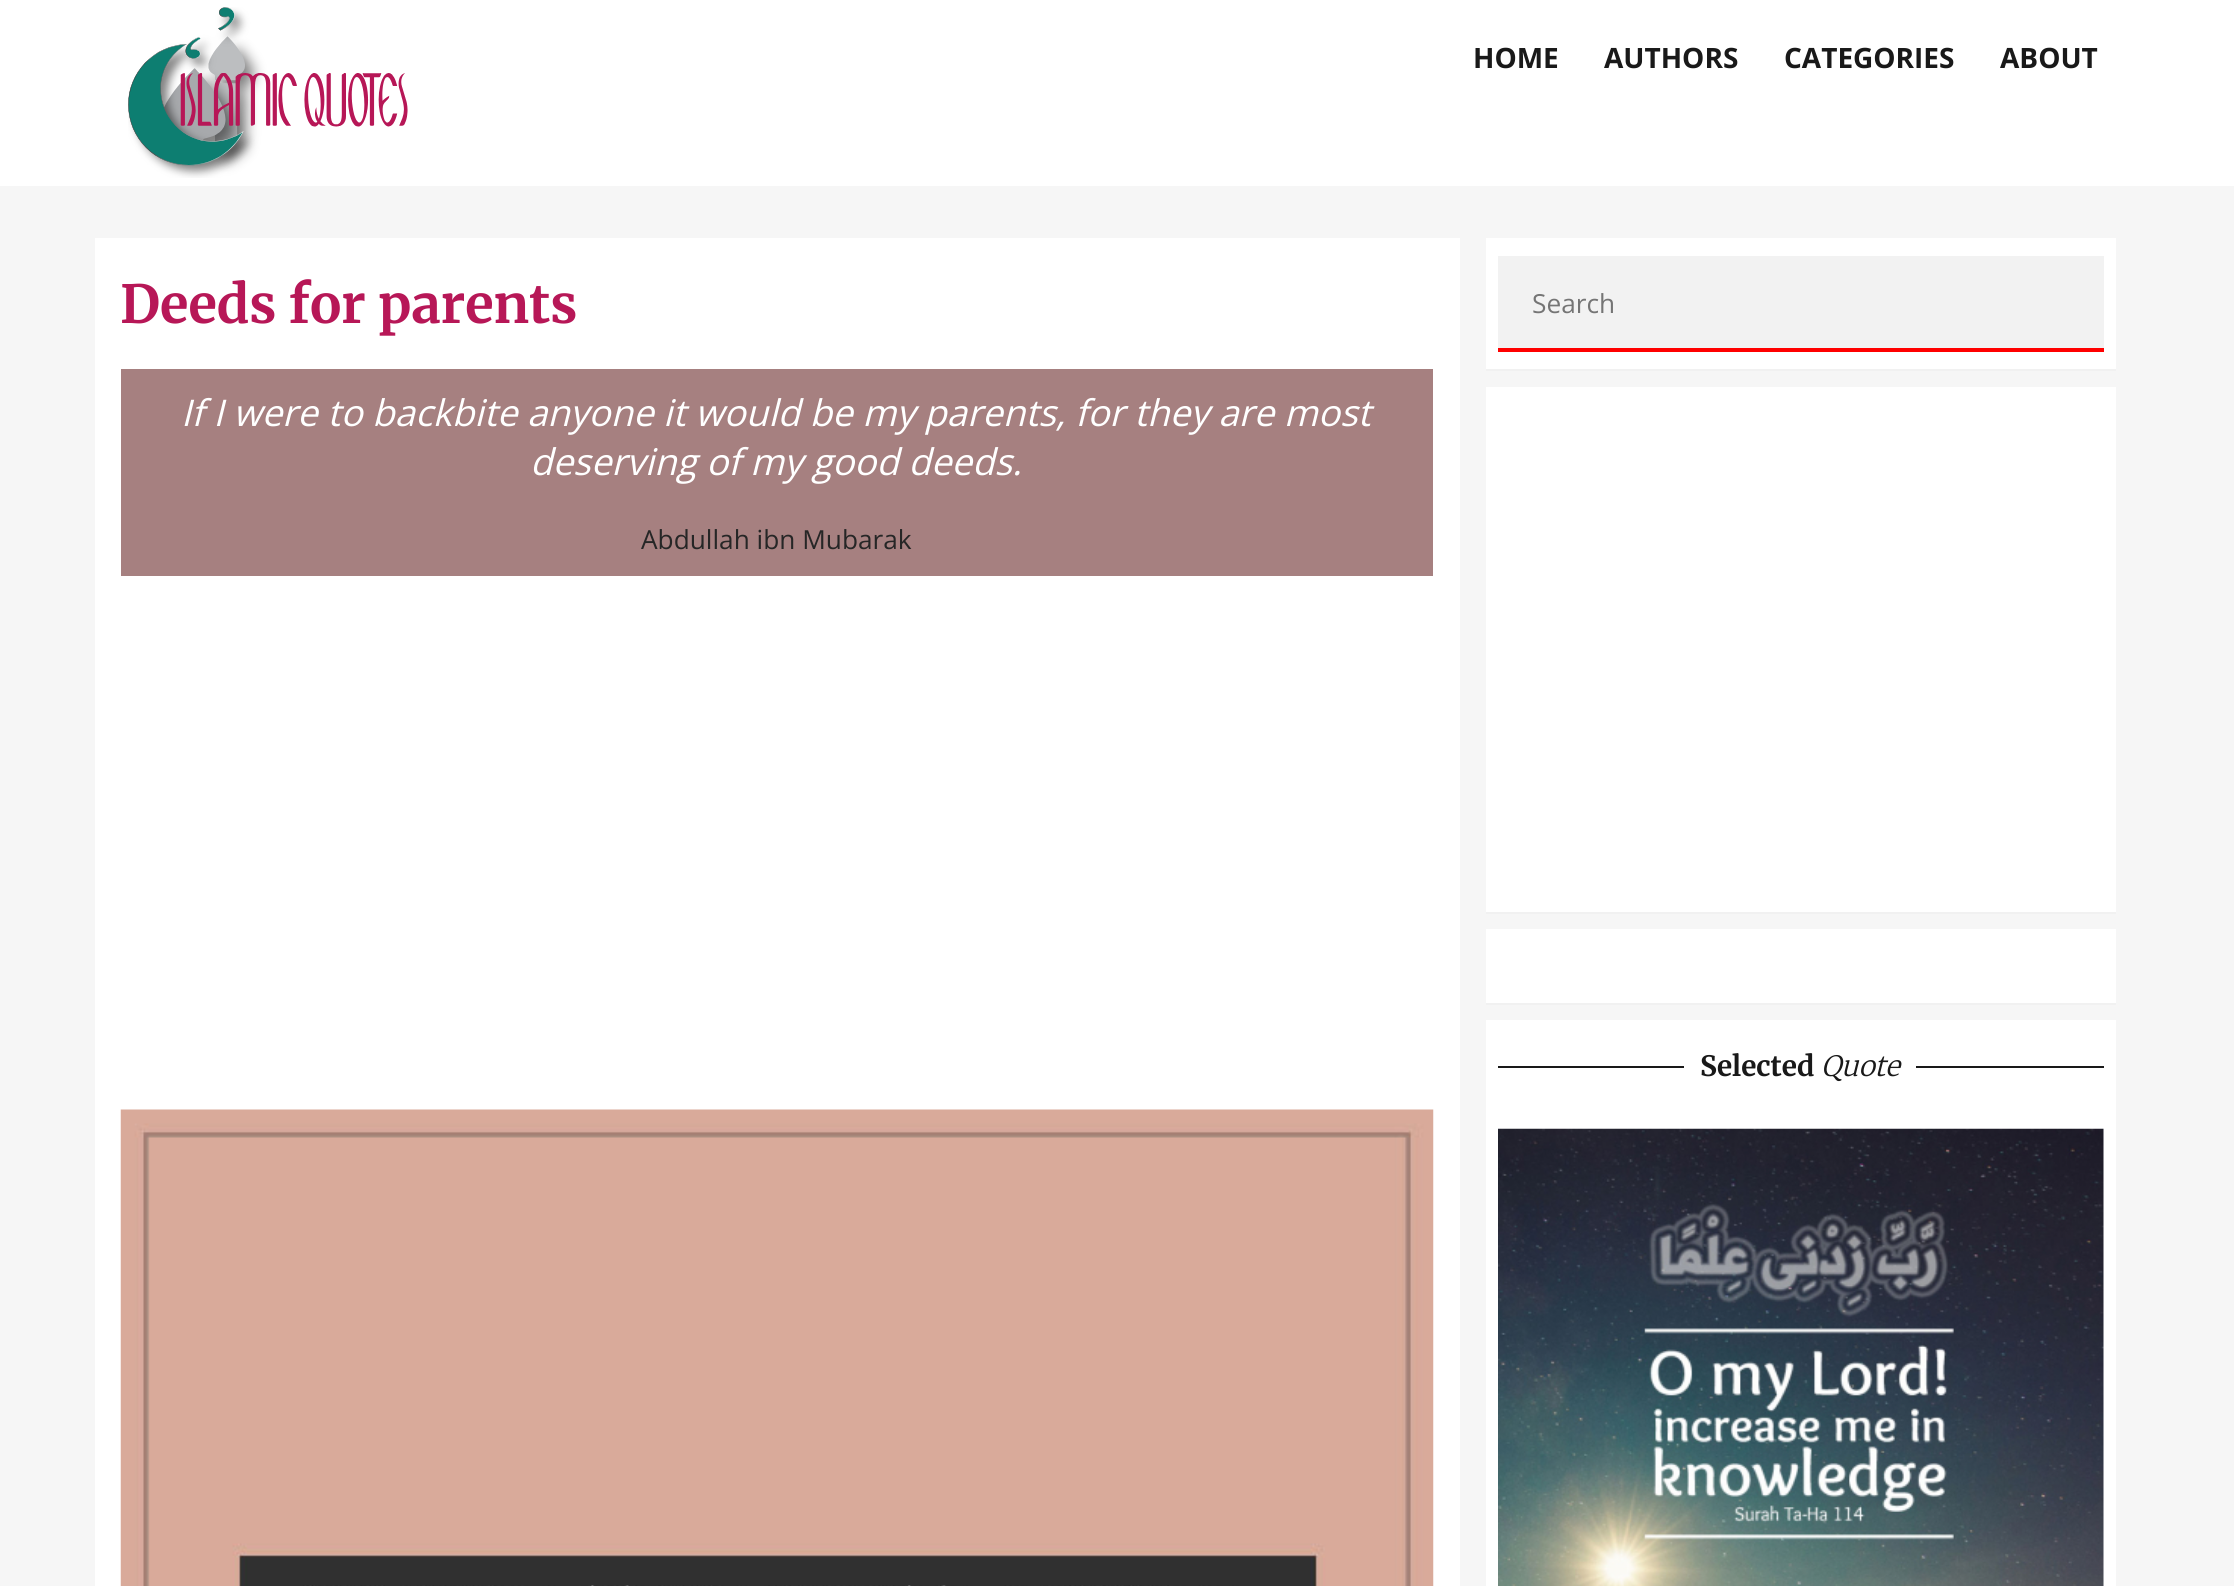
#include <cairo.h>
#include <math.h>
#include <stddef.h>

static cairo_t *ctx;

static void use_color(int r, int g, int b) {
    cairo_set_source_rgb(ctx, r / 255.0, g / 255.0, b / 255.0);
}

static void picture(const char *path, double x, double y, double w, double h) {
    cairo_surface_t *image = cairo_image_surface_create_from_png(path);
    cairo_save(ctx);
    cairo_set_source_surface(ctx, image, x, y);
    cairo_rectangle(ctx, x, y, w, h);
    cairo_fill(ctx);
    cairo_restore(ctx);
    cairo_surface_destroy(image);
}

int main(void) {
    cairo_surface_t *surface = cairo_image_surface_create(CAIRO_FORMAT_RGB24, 2234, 1586);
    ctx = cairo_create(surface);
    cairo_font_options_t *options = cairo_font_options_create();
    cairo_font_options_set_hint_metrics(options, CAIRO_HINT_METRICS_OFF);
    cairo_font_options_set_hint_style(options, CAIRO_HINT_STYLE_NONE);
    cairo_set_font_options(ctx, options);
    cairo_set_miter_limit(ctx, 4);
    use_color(246, 246, 246);
    cairo_paint(ctx);
    use_color(255, 255, 255);
    cairo_rectangle(ctx, 0, 0, 2234, 186);
    cairo_fill(ctx);
    picture("img1.png", 128, 7, 280, 171);
    cairo_select_font_face(ctx, "Open Sans", CAIRO_FONT_SLANT_NORMAL, CAIRO_FONT_WEIGHT_BOLD);
    cairo_set_font_size(ctx, 28);
    use_color(25, 25, 25);
    cairo_move_to(ctx, 1473, 68);
    cairo_show_text(ctx, "HOME");
    cairo_move_to(ctx, 1604, 68);
    cairo_show_text(ctx, "AUTHORS");
    cairo_move_to(ctx, 1784, 68);
    cairo_show_text(ctx, "CATEGORIES");
    cairo_move_to(ctx, 2000, 68);
    cairo_show_text(ctx, "ABOUT");
    use_color(255, 255, 255);
    cairo_rectangle(ctx, 95, 238, 1365, 1348);
    cairo_fill(ctx);
    cairo_select_font_face(ctx, "Merriweather", CAIRO_FONT_SLANT_NORMAL, CAIRO_FONT_WEIGHT_BOLD);
    cairo_set_font_size(ctx, 52.5);
    use_color(183, 23, 87);
    cairo_move_to(ctx, 120, 323);
    cairo_show_text(ctx, "Deeds for parents");
    use_color(166, 128, 128);
    cairo_rectangle(ctx, 121, 369, 1312, 207);
    cairo_fill(ctx);
    cairo_select_font_face(ctx, "Open Sans", CAIRO_FONT_SLANT_ITALIC, CAIRO_FONT_WEIGHT_NORMAL);
    cairo_set_font_size(ctx, 36.75);
    use_color(255, 255, 255);
    cairo_move_to(ctx, 181, 426);
    cairo_show_text(ctx, "If I were to backbite anyone it would be my parents, for they are most");
    cairo_move_to(ctx, 530, 475);
    cairo_show_text(ctx, "deserving of my good deeds.");
    cairo_select_font_face(ctx, "Open Sans", CAIRO_FONT_SLANT_NORMAL, CAIRO_FONT_WEIGHT_NORMAL);
    cairo_set_font_size(ctx, 26.25);
    use_color(38, 38, 38);
    cairo_move_to(ctx, 641, 549);
    cairo_show_text(ctx, "Abdullah ibn Mubarak");
    picture("img2.png", 120, 1109, 1314, 477);
    use_color(241, 241, 241);
    cairo_new_path(ctx);
    cairo_move_to(ctx, 1486, 369);
    cairo_line_to(ctx, 1486, 371);
    cairo_line_to(ctx, 2116, 371);
    cairo_line_to(ctx, 2116, 240);
    cairo_line_to(ctx, 2116, 369);
    cairo_close_path(ctx);
    cairo_fill(ctx);
    use_color(255, 255, 255);
    cairo_rectangle(ctx, 1486, 238, 630, 131);
    cairo_fill(ctx);
    use_color(242, 242, 242);
    cairo_rectangle(ctx, 1498, 256, 606, 92);
    cairo_fill(ctx);
    use_color(255, 0, 0);
    cairo_rectangle(ctx, 1498, 348, 606, 4);
    cairo_fill(ctx);
    use_color(117, 117, 117);
    cairo_move_to(ctx, 1532, 313);
    cairo_show_text(ctx, "Search");
    use_color(241, 241, 241);
    cairo_new_path(ctx);
    cairo_move_to(ctx, 1486, 912);
    cairo_line_to(ctx, 1486, 914);
    cairo_line_to(ctx, 2116, 914);
    cairo_line_to(ctx, 2116, 389);
    cairo_line_to(ctx, 2116, 912);
    cairo_close_path(ctx);
    cairo_fill(ctx);
    use_color(255, 255, 255);
    cairo_rectangle(ctx, 1486, 387, 630, 525);
    cairo_fill(ctx);
    use_color(241, 241, 241);
    cairo_new_path(ctx);
    cairo_move_to(ctx, 1486, 1003);
    cairo_line_to(ctx, 1486, 1005);
    cairo_line_to(ctx, 2116, 1005);
    cairo_line_to(ctx, 2116, 931);
    cairo_line_to(ctx, 2116, 1003);
    cairo_close_path(ctx);
    cairo_fill(ctx);
    use_color(255, 255, 255);
    cairo_rectangle(ctx, 1486, 929, 630, 74);
    cairo_fill(ctx);
    cairo_rectangle(ctx, 1486, 1020, 630, 566);
    cairo_fill(ctx);
    use_color(25, 25, 25);
    cairo_rectangle(ctx, 1498, 1066, 606, 2);
    cairo_fill(ctx);
    use_color(255, 255, 255);
    cairo_rectangle(ctx, 1684, 1066, 232, 2);
    cairo_fill(ctx);
    cairo_select_font_face(ctx, "Merriweather", CAIRO_FONT_SLANT_NORMAL, CAIRO_FONT_WEIGHT_BOLD);
    cairo_set_font_size(ctx, 28);
    use_color(25, 25, 25);
    cairo_move_to(ctx, 1700, 1076);
    cairo_show_text(ctx, "Selected");
    cairo_select_font_face(ctx, "Merriweather Light", CAIRO_FONT_SLANT_ITALIC, CAIRO_FONT_WEIGHT_NORMAL);
    cairo_move_to(ctx, 1821, 1076);
    cairo_show_text(ctx, "Quote");
    picture("img3.png", 1498, 1128, 606, 458);
    cairo_surface_write_to_png(surface, "result.png");
    cairo_font_options_destroy(options);
    cairo_destroy(ctx);
    cairo_surface_destroy(surface);
    return 0;
}
